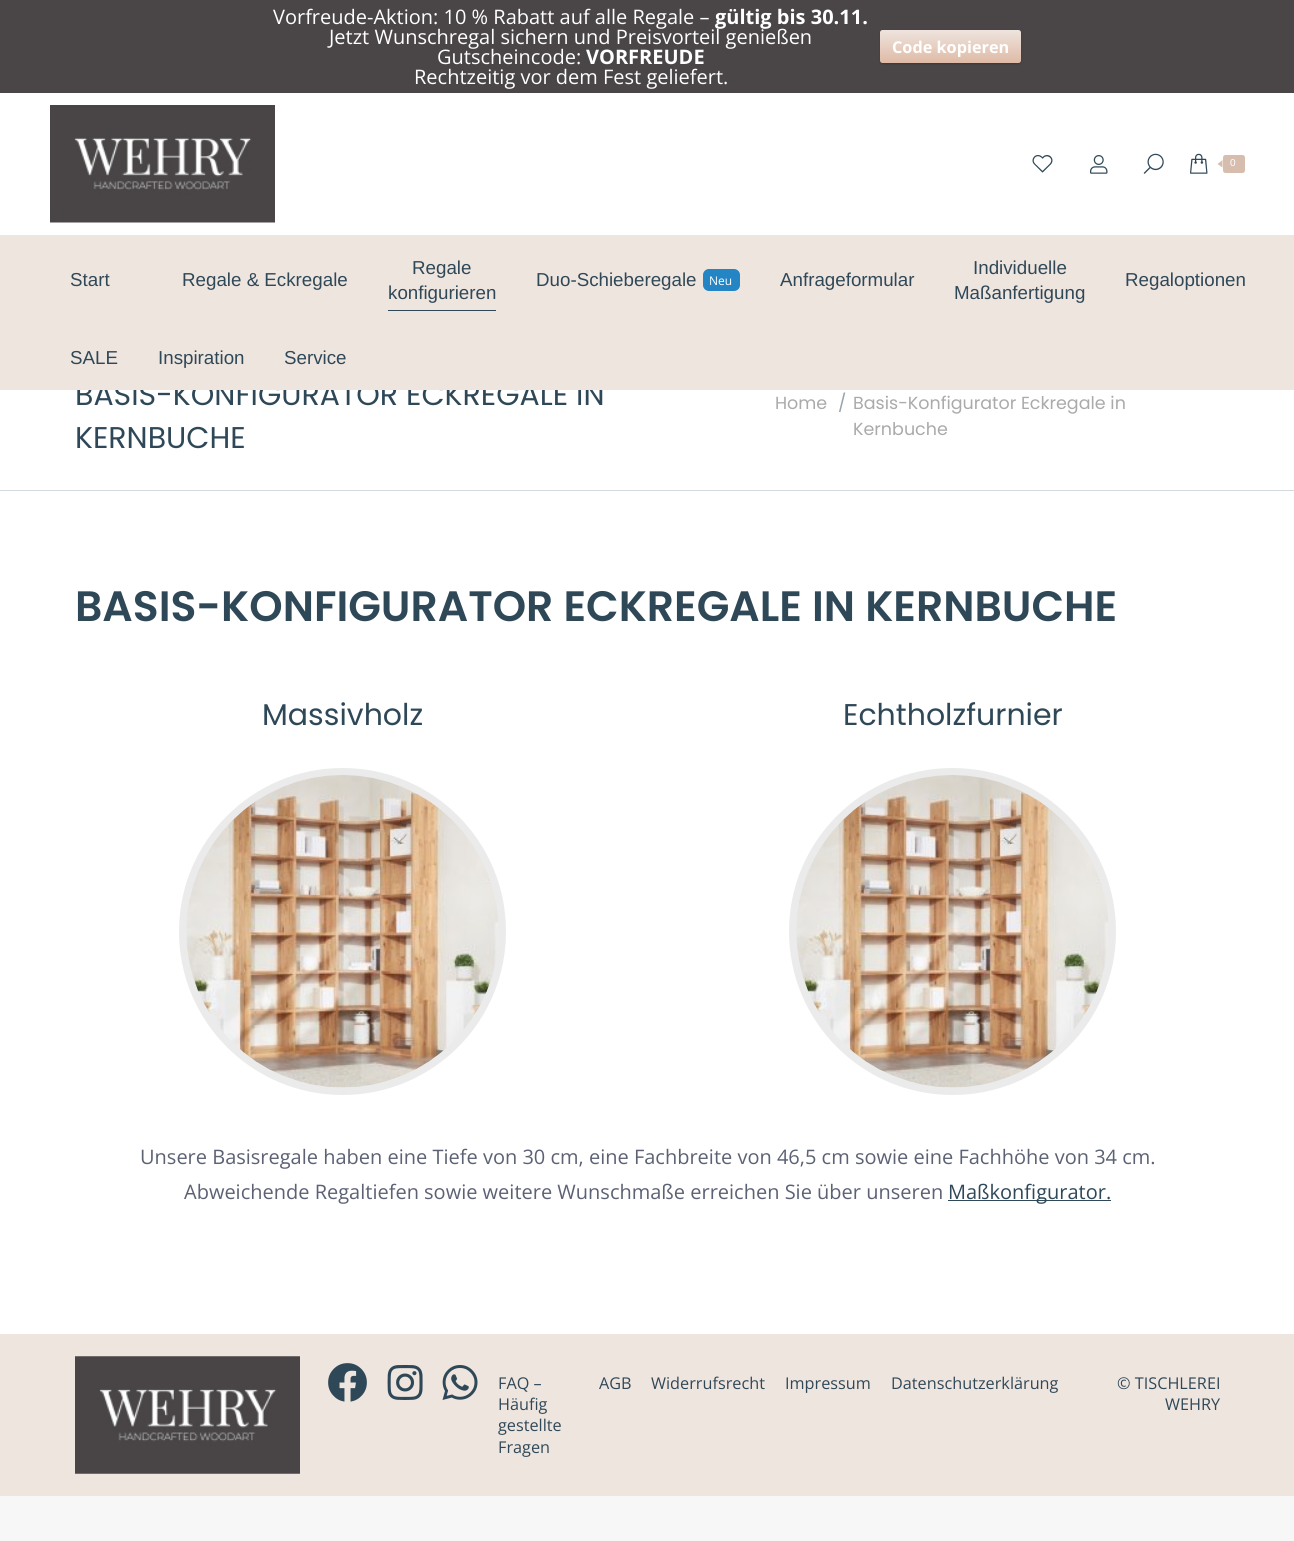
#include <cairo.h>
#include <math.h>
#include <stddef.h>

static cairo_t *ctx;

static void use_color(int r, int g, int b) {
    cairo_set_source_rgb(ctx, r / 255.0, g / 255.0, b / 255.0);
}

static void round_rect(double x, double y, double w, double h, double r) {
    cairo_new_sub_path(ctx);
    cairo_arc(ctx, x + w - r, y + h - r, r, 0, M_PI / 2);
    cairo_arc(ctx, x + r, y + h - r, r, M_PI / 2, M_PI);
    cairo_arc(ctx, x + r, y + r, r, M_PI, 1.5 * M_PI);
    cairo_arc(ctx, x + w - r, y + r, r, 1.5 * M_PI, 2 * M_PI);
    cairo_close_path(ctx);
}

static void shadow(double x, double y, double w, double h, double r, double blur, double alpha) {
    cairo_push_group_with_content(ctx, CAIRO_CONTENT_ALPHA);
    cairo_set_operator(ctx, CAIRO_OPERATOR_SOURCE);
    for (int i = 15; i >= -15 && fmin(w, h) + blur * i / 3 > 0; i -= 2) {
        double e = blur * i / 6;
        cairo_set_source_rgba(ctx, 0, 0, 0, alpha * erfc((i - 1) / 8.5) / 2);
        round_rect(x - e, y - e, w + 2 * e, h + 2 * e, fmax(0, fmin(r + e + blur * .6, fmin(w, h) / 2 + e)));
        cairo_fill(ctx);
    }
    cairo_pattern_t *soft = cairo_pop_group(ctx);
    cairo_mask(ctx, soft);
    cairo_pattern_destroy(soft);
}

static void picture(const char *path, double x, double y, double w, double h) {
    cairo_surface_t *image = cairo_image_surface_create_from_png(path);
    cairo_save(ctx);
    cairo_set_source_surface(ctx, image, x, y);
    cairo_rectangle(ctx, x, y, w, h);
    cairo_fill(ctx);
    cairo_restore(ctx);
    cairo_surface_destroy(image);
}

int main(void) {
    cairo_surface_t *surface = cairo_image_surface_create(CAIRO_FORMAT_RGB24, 1294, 1541);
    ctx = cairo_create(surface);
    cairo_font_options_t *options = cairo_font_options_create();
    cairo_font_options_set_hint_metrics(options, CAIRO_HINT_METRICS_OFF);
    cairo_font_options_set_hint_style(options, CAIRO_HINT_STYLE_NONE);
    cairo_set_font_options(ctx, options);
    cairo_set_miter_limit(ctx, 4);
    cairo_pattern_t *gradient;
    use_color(247, 247, 247);
    cairo_paint(ctx);
    use_color(74, 70, 71);
    cairo_rectangle(ctx, 0, 0, 1294, 93);
    cairo_fill(ctx);
    cairo_select_font_face(ctx, "Open Sans", CAIRO_FONT_SLANT_NORMAL, CAIRO_FONT_WEIGHT_NORMAL);
    cairo_set_font_size(ctx, 20);
    use_color(255, 255, 255);
    cairo_move_to(ctx, 273, 24);
    cairo_show_text(ctx, "Vorfreude-Aktion: 10 % Rabatt auf alle Regale –");
    cairo_select_font_face(ctx, "Open Sans", CAIRO_FONT_SLANT_NORMAL, CAIRO_FONT_WEIGHT_BOLD);
    cairo_move_to(ctx, 715, 24);
    cairo_show_text(ctx, "gültig bis 30.11.");
    cairo_select_font_face(ctx, "Open Sans", CAIRO_FONT_SLANT_NORMAL, CAIRO_FONT_WEIGHT_NORMAL);
    cairo_move_to(ctx, 329, 44);
    cairo_show_text(ctx, "Jetzt Wunschregal sichern und Preisvorteil genießen");
    cairo_move_to(ctx, 437, 64);
    cairo_show_text(ctx, "Gutscheincode:");
    cairo_select_font_face(ctx, "Open Sans", CAIRO_FONT_SLANT_NORMAL, CAIRO_FONT_WEIGHT_BOLD);
    cairo_move_to(ctx, 586, 64);
    cairo_show_text(ctx, "VORFREUDE");
    cairo_select_font_face(ctx, "Open Sans", CAIRO_FONT_SLANT_NORMAL, CAIRO_FONT_WEIGHT_NORMAL);
    cairo_move_to(ctx, 414, 84);
    cairo_show_text(ctx, "Rechtzeitig vor dem Fest geliefert.");
    use_color(0, 0, 0);
    shadow(880, 31, 141, 33, 2.5, 1, 0.2);
    gradient = cairo_pattern_create_linear(951, 30, 951, 63);
    cairo_pattern_add_color_stop_rgba(gradient, 0, 0.933, 0.894, 0.871, 1);
    cairo_pattern_add_color_stop_rgba(gradient, 1, 0.875, 0.729, 0.651, 1);
    cairo_set_source(ctx, gradient);
    cairo_pattern_destroy(gradient);
    round_rect(880, 30, 141, 33, 2.5);
    cairo_fill(ctx);
    cairo_select_font_face(ctx, "Open Sans", CAIRO_FONT_SLANT_NORMAL, CAIRO_FONT_WEIGHT_BOLD);
    cairo_set_font_size(ctx, 16.25);
    use_color(255, 255, 255);
    cairo_move_to(ctx, 892, 53);
    cairo_show_text(ctx, "Code kopieren");
    cairo_rectangle(ctx, 0, 93, 1294, 1241);
    cairo_fill(ctx);
    picture("img1.png", 50, 105, 225, 118);
    picture("img2.png", 1032, 155, 21, 18);
    picture("img3.png", 1090, 155, 18, 19);
    picture("img4.png", 1143, 153, 21, 21);
    picture("img5.png", 1190, 153, 18, 21);
    use_color(215, 189, 174);
    round_rect(1223, 155, 22, 18, 2.5);
    cairo_fill(ctx);
    cairo_new_path(ctx);
    cairo_move_to(ctx, 1222.5, 160);
    cairo_line_to(ctx, 1222.5, 167.5);
    cairo_line_to(ctx, 1217.5, 164);
    cairo_close_path(ctx);
    cairo_fill(ctx);
    cairo_select_font_face(ctx, "Liberation Sans", CAIRO_FONT_SLANT_NORMAL, CAIRO_FONT_WEIGHT_NORMAL);
    cairo_set_font_size(ctx, 10);
    use_color(255, 255, 255);
    cairo_move_to(ctx, 1230, 166);
    cairo_show_text(ctx, "0");
    cairo_select_font_face(ctx, "Poppins", CAIRO_FONT_SLANT_NORMAL, CAIRO_FONT_WEIGHT_NORMAL);
    cairo_set_font_size(ctx, 30);
    use_color(47, 72, 88);
    cairo_move_to(ctx, 75, 405);
    cairo_show_text(ctx, "BASIS-KONFIGURATOR ECKREGALE IN");
    use_color(239, 229, 223);
    cairo_rectangle(ctx, 0, 235, 1294, 155);
    cairo_fill(ctx);
    cairo_select_font_face(ctx, "Liberation Sans", CAIRO_FONT_SLANT_NORMAL, CAIRO_FONT_WEIGHT_NORMAL);
    cairo_set_font_size(ctx, 18.75);
    use_color(47, 72, 88);
    cairo_move_to(ctx, 70, 286);
    cairo_show_text(ctx, "Start");
    cairo_move_to(ctx, 182, 286);
    cairo_show_text(ctx, "Regale & Eckregale");
    cairo_move_to(ctx, 412, 274);
    cairo_show_text(ctx, "Regale");
    cairo_move_to(ctx, 388, 299);
    cairo_show_text(ctx, "konfigurieren");
    cairo_rectangle(ctx, 388, 310, 108, 1);
    cairo_fill(ctx);
    cairo_move_to(ctx, 536, 286);
    cairo_show_text(ctx, "Duo-Schieberegale");
    use_color(35, 133, 195);
    round_rect(703, 269, 37, 22, 6);
    cairo_fill(ctx);
    cairo_select_font_face(ctx, "Open Sans", CAIRO_FONT_SLANT_NORMAL, CAIRO_FONT_WEIGHT_NORMAL);
    cairo_set_font_size(ctx, 12);
    use_color(255, 255, 255);
    cairo_move_to(ctx, 709, 285);
    cairo_show_text(ctx, "Neu");
    cairo_select_font_face(ctx, "Liberation Sans", CAIRO_FONT_SLANT_NORMAL, CAIRO_FONT_WEIGHT_NORMAL);
    cairo_set_font_size(ctx, 18.75);
    use_color(47, 72, 88);
    cairo_move_to(ctx, 780, 286);
    cairo_show_text(ctx, "Anfrageformular");
    cairo_move_to(ctx, 973, 274);
    cairo_show_text(ctx, "Individuelle");
    cairo_move_to(ctx, 954, 299);
    cairo_show_text(ctx, "Maßanfertigung");
    cairo_move_to(ctx, 1125, 286);
    cairo_show_text(ctx, "Regaloptionen");
    cairo_move_to(ctx, 70, 364);
    cairo_show_text(ctx, "SALE");
    cairo_move_to(ctx, 158, 364);
    cairo_show_text(ctx, "Inspiration");
    cairo_move_to(ctx, 284, 364);
    cairo_show_text(ctx, "Service");
    use_color(213, 218, 222);
    cairo_rectangle(ctx, 0, 490, 1294, 1);
    cairo_fill(ctx);
    cairo_select_font_face(ctx, "Poppins", CAIRO_FONT_SLANT_NORMAL, CAIRO_FONT_WEIGHT_NORMAL);
    cairo_set_font_size(ctx, 30);
    use_color(47, 72, 88);
    cairo_move_to(ctx, 75, 448);
    cairo_show_text(ctx, "KERNBUCHE");
    cairo_set_font_size(ctx, 17.5);
    use_color(170, 170, 170);
    cairo_move_to(ctx, 775, 409);
    cairo_show_text(ctx, "Home");
    use_color(151, 164, 172);
    cairo_move_to(ctx, 838, 409);
    cairo_show_text(ctx, "/");
    use_color(170, 170, 170);
    cairo_move_to(ctx, 853, 409);
    cairo_show_text(ctx, "Basis-Konfigurator Eckregale in");
    cairo_move_to(ctx, 853, 435);
    cairo_show_text(ctx, "Kernbuche");
    cairo_select_font_face(ctx, "Poppins SemiBold", CAIRO_FONT_SLANT_NORMAL, CAIRO_FONT_WEIGHT_NORMAL);
    cairo_set_font_size(ctx, 42.5);
    use_color(47, 72, 88);
    cairo_move_to(ctx, 75, 621);
    cairo_show_text(ctx, "BASIS-KONFIGURATOR ECKREGALE IN KERNBUCHE");
    cairo_select_font_face(ctx, "Poppins", CAIRO_FONT_SLANT_NORMAL, CAIRO_FONT_WEIGHT_NORMAL);
    cairo_set_font_size(ctx, 30);
    cairo_move_to(ctx, 262, 725);
    cairo_show_text(ctx, "Massivholz");
    use_color(235, 235, 235);
    cairo_new_path(ctx);
    cairo_arc(ctx, 342.5, 931.5, 163.5, 0, 2 * M_PI);
    cairo_fill(ctx);
    picture("img6.png", 186, 775, 312, 313);
    use_color(47, 72, 88);
    cairo_move_to(ctx, 843, 725);
    cairo_show_text(ctx, "Echtholzfurnier");
    use_color(235, 235, 235);
    cairo_new_path(ctx);
    cairo_arc(ctx, 952.5, 931.5, 163.5, 0, 2 * M_PI);
    cairo_fill(ctx);
    picture("img7.png", 796, 775, 312, 313);
    cairo_select_font_face(ctx, "Open Sans", CAIRO_FONT_SLANT_NORMAL, CAIRO_FONT_WEIGHT_NORMAL);
    cairo_set_font_size(ctx, 20);
    use_color(92, 97, 116);
    cairo_move_to(ctx, 140, 1164);
    cairo_show_text(ctx, "Unsere Basisregale haben eine Tiefe von 30 cm, eine Fachbreite von 46,5 cm sowie eine Fachhöhe von 34 cm.");
    cairo_move_to(ctx, 184, 1199);
    cairo_show_text(ctx, "Abweichende Regaltiefen sowie weitere Wunschmaße erreichen Sie über unseren");
    use_color(47, 72, 88);
    cairo_rectangle(ctx, 948, 1200, 163, 1);
    cairo_fill(ctx);
    cairo_move_to(ctx, 948, 1199);
    cairo_show_text(ctx, "Maßkonfigurator.");
    use_color(239, 229, 223);
    cairo_rectangle(ctx, 0, 1334, 1294, 162);
    cairo_fill(ctx);
    picture("img8.png", 75, 1356, 225, 118);
    picture("img9.png", 328, 1363, 39, 39);
    picture("img10.png", 387, 1365, 36, 35);
    picture("img11.png", 442, 1365, 36, 35);
    cairo_set_font_size(ctx, 16.25);
    use_color(47, 72, 88);
    cairo_move_to(ctx, 498, 1389);
    cairo_show_text(ctx, "FAQ –");
    cairo_move_to(ctx, 498, 1410);
    cairo_show_text(ctx, "Häufig");
    cairo_move_to(ctx, 498, 1431);
    cairo_show_text(ctx, "gestellte");
    cairo_move_to(ctx, 498, 1453);
    cairo_show_text(ctx, "Fragen");
    cairo_move_to(ctx, 599, 1389);
    cairo_show_text(ctx, "AGB");
    cairo_move_to(ctx, 651, 1389);
    cairo_show_text(ctx, "Widerrufsrecht");
    cairo_move_to(ctx, 785, 1389);
    cairo_show_text(ctx, "Impressum");
    cairo_move_to(ctx, 891, 1389);
    cairo_show_text(ctx, "Datenschutzerklärung");
    cairo_move_to(ctx, 1117, 1389);
    cairo_show_text(ctx, "© TISCHLEREI");
    cairo_move_to(ctx, 1165, 1410);
    cairo_show_text(ctx, "WEHRY");
    cairo_surface_write_to_png(surface, "result.png");
    cairo_font_options_destroy(options);
    cairo_destroy(ctx);
    cairo_surface_destroy(surface);
    return 0;
}
